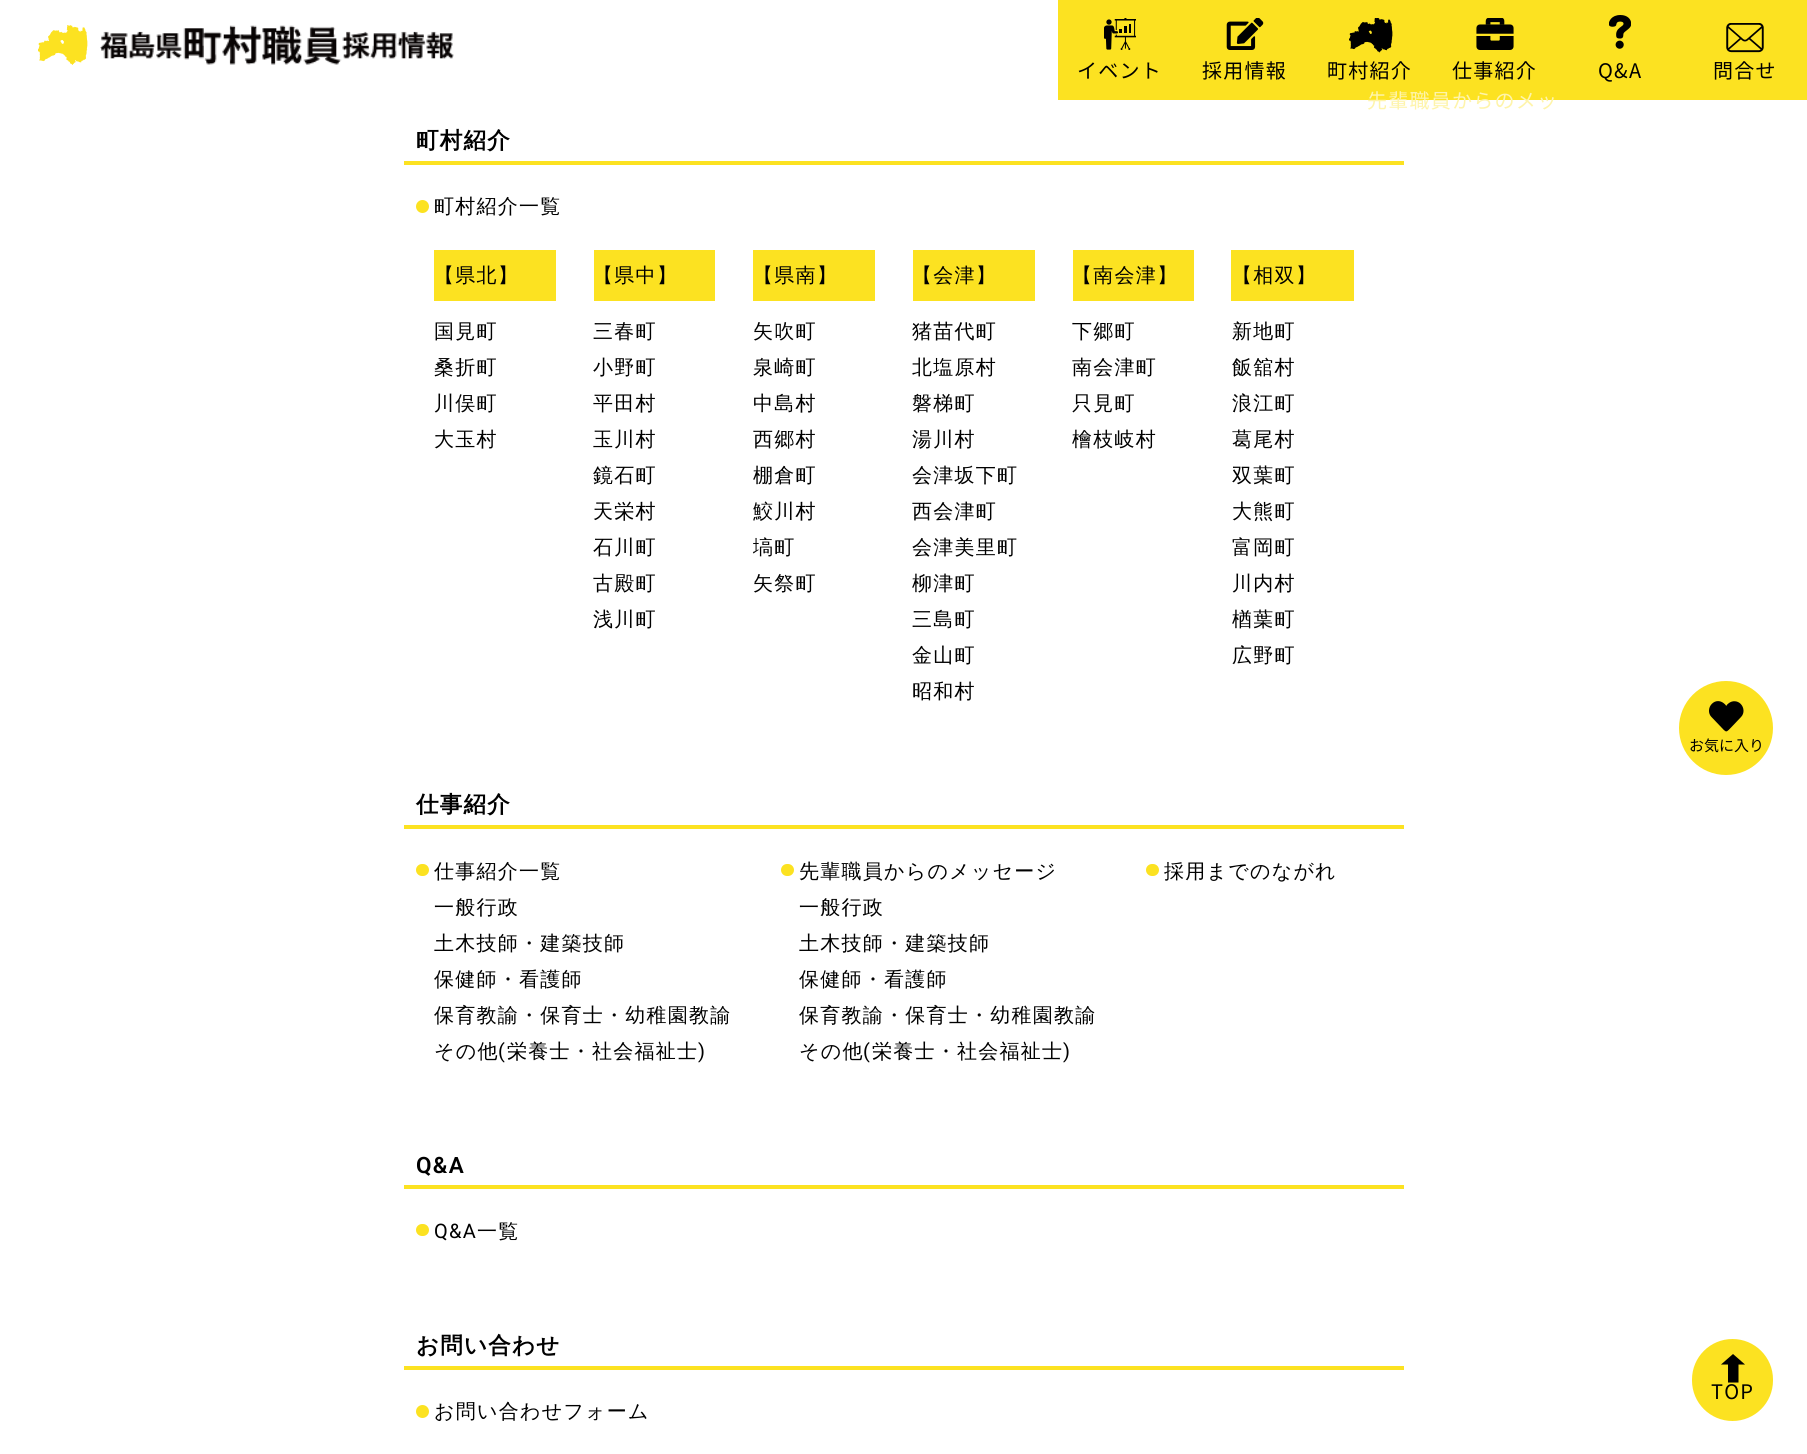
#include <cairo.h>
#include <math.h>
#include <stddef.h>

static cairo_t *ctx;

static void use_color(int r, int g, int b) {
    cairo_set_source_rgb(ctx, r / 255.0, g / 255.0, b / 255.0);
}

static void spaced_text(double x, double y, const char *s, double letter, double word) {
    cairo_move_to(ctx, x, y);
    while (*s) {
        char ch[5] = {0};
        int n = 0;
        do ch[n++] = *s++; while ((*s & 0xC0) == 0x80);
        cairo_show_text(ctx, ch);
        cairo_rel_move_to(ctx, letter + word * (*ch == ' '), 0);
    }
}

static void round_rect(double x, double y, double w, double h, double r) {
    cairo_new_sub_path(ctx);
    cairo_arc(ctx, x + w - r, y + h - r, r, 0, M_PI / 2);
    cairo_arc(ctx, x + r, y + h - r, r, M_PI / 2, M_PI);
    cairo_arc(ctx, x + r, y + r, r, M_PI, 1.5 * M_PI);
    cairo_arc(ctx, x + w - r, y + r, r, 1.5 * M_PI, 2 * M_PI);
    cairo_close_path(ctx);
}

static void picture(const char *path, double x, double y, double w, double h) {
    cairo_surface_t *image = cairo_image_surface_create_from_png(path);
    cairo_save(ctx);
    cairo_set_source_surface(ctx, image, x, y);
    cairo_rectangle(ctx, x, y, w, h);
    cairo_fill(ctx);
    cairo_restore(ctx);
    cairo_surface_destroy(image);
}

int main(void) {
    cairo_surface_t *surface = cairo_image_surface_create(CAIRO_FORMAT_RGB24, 1807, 1454);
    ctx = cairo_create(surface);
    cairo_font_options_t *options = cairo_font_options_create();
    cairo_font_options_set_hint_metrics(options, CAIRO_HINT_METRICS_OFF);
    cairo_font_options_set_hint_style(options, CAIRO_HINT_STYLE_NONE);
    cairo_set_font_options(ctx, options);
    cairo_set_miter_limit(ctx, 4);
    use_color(255, 255, 255);
    cairo_paint(ctx);
    picture("img1.png", 38, 25, 50, 40);
    picture("img2.png", 100, 25, 354, 40);
    use_color(252, 226, 33);
    cairo_rectangle(ctx, 1058, 0, 749, 100);
    cairo_fill(ctx);
    picture("img3.png", 1226, 18, 38, 32);
    cairo_select_font_face(ctx, "Noto Sans JP Thin", CAIRO_FONT_SLANT_NORMAL, CAIRO_FONT_WEIGHT_NORMAL);
    cairo_set_font_size(ctx, 20);
    use_color(0, 0, 0);
    spaced_text(1202, 78, "採用情報", 1.25, 0);
    picture("img4.png", 1349, 18, 44, 35);
    spaced_text(1327, 78, "町村紹介", 1.25, 0);
    picture("img5.png", 1104, 18, 32, 32);
    spaced_text(1077, 78, "イベント", 1.25, 0);
    picture("img6.png", 1476, 18, 38, 32);
    spaced_text(1452, 78, "仕事紹介", 1.25, 0);
    use_color(254, 244, 171);
    spaced_text(1367, 108, "先輩職員からのメッ", 1.25, 0);
    picture("img7.png", 1609, 15, 22, 34);
    use_color(0, 0, 0);
    spaced_text(1598, 78, "Q&A", 1.25, 0);
    picture("img8.png", 1726, 23, 38, 30);
    spaced_text(1713, 78, "問合せ", 1.25, 0);
    use_color(252, 226, 33);
    cairo_rectangle(ctx, 404, 161, 1000, 4);
    cairo_fill(ctx);
    cairo_select_font_face(ctx, "WenQuanYi Zen Hei", CAIRO_FONT_SLANT_NORMAL, CAIRO_FONT_WEIGHT_BOLD);
    cairo_set_font_size(ctx, 22.5);
    use_color(0, 0, 0);
    spaced_text(416, 148, "町村紹介", 1.25, 0);
    use_color(252, 226, 33);
    cairo_new_path(ctx);
    cairo_arc(ctx, 422.5, 206.5, 6.5, 0, 2 * M_PI);
    cairo_fill(ctx);
    cairo_select_font_face(ctx, "WenQuanYi Zen Hei Medium", CAIRO_FONT_SLANT_NORMAL, CAIRO_FONT_WEIGHT_NORMAL);
    cairo_set_font_size(ctx, 20);
    use_color(0, 0, 0);
    spaced_text(434, 213, "町村紹介一覧", 1.25, 0);
    use_color(252, 226, 33);
    cairo_rectangle(ctx, 434, 250, 122, 51);
    cairo_fill(ctx);
    use_color(0, 0, 0);
    spaced_text(434, 282, "【県北】", 1.25, 0);
    spaced_text(434, 338, "国見町", 1.25, 0);
    spaced_text(434, 374, "桑折町", 1.25, 0);
    spaced_text(434, 410, "川俣町", 1.25, 0);
    spaced_text(434, 446, "大玉村", 1.25, 0);
    use_color(252, 226, 33);
    cairo_rectangle(ctx, 594, 250, 121, 51);
    cairo_fill(ctx);
    use_color(0, 0, 0);
    spaced_text(593, 282, "【県中】", 1.25, 0);
    spaced_text(593, 338, "三春町", 1.25, 0);
    spaced_text(593, 374, "小野町", 1.25, 0);
    spaced_text(593, 410, "平田村", 1.25, 0);
    spaced_text(593, 446, "玉川村", 1.25, 0);
    spaced_text(593, 482, "鏡石町", 1.25, 0);
    spaced_text(593, 518, "天栄村", 1.25, 0);
    spaced_text(593, 554, "石川町", 1.25, 0);
    spaced_text(593, 590, "古殿町", 1.25, 0);
    spaced_text(593, 626, "浅川町", 1.25, 0);
    use_color(252, 226, 33);
    cairo_rectangle(ctx, 753, 250, 122, 51);
    cairo_fill(ctx);
    use_color(0, 0, 0);
    spaced_text(753, 282, "【県南】", 1.25, 0);
    spaced_text(753, 338, "矢吹町", 1.25, 0);
    spaced_text(753, 374, "泉崎町", 1.25, 0);
    spaced_text(753, 410, "中島村", 1.25, 0);
    spaced_text(753, 446, "西郷村", 1.25, 0);
    spaced_text(753, 482, "棚倉町", 1.25, 0);
    spaced_text(753, 518, "鮫川村", 1.25, 0);
    spaced_text(753, 554, "塙町", 1.25, 0);
    spaced_text(753, 590, "矢祭町", 1.25, 0);
    use_color(252, 226, 33);
    cairo_rectangle(ctx, 913, 250, 122, 51);
    cairo_fill(ctx);
    use_color(0, 0, 0);
    spaced_text(912, 282, "【会津】", 1.25, 0);
    spaced_text(912, 338, "猪苗代町", 1.25, 0);
    spaced_text(912, 374, "北塩原村", 1.25, 0);
    spaced_text(912, 410, "磐梯町", 1.25, 0);
    spaced_text(912, 446, "湯川村", 1.25, 0);
    spaced_text(912, 482, "会津坂下町", 1.25, 0);
    spaced_text(912, 518, "西会津町", 1.25, 0);
    spaced_text(912, 554, "会津美里町", 1.25, 0);
    spaced_text(912, 590, "柳津町", 1.25, 0);
    spaced_text(912, 626, "三島町", 1.25, 0);
    spaced_text(912, 662, "金山町", 1.25, 0);
    spaced_text(912, 698, "昭和村", 1.25, 0);
    use_color(252, 226, 33);
    cairo_rectangle(ctx, 1073, 250, 121, 51);
    cairo_fill(ctx);
    use_color(0, 0, 0);
    spaced_text(1072, 282, "【南会津】", 1.25, 0);
    spaced_text(1072, 338, "下郷町", 1.25, 0);
    spaced_text(1072, 374, "南会津町", 1.25, 0);
    spaced_text(1072, 410, "只見町", 1.25, 0);
    spaced_text(1072, 446, "檜枝岐村", 1.25, 0);
    use_color(252, 226, 33);
    cairo_rectangle(ctx, 1231, 250, 123, 51);
    cairo_fill(ctx);
    use_color(0, 0, 0);
    spaced_text(1232, 282, "【相双】", 1.25, 0);
    spaced_text(1232, 338, "新地町", 1.25, 0);
    spaced_text(1232, 374, "飯舘村", 1.25, 0);
    spaced_text(1232, 410, "浪江町", 1.25, 0);
    spaced_text(1232, 446, "葛尾村", 1.25, 0);
    spaced_text(1232, 482, "双葉町", 1.25, 0);
    spaced_text(1232, 518, "大熊町", 1.25, 0);
    spaced_text(1232, 554, "富岡町", 1.25, 0);
    spaced_text(1232, 590, "川内村", 1.25, 0);
    spaced_text(1232, 626, "楢葉町", 1.25, 0);
    spaced_text(1232, 662, "広野町", 1.25, 0);
    use_color(252, 226, 33);
    cairo_rectangle(ctx, 404, 825, 1000, 4);
    cairo_fill(ctx);
    cairo_select_font_face(ctx, "WenQuanYi Zen Hei", CAIRO_FONT_SLANT_NORMAL, CAIRO_FONT_WEIGHT_BOLD);
    cairo_set_font_size(ctx, 22.5);
    use_color(0, 0, 0);
    spaced_text(416, 812, "仕事紹介", 1.25, 0);
    use_color(252, 226, 33);
    round_rect(416, 864, 13, 12, 6);
    cairo_fill(ctx);
    cairo_select_font_face(ctx, "WenQuanYi Zen Hei Medium", CAIRO_FONT_SLANT_NORMAL, CAIRO_FONT_WEIGHT_NORMAL);
    cairo_set_font_size(ctx, 20);
    use_color(0, 0, 0);
    spaced_text(434, 878, "仕事紹介一覧", 1.25, 0);
    spaced_text(434, 914, "一般行政", 1.25, 0);
    spaced_text(434, 950, "土木技師・建築技師", 1.25, 0);
    spaced_text(434, 986, "保健師・看護師", 1.25, 0);
    spaced_text(434, 1022, "保育教諭・保育士・幼稚園教諭", 1.25, 0);
    spaced_text(434, 1058, "その他", 1.25, 0);
    cairo_select_font_face(ctx, "Roboto", CAIRO_FONT_SLANT_NORMAL, CAIRO_FONT_WEIGHT_NORMAL);
    spaced_text(498, 1058, "(", 1.25, 0);
    cairo_select_font_face(ctx, "WenQuanYi Zen Hei Medium", CAIRO_FONT_SLANT_NORMAL, CAIRO_FONT_WEIGHT_NORMAL);
    spaced_text(507, 1058, "栄養士・社会福祉士", 1.25, 0);
    cairo_select_font_face(ctx, "Roboto", CAIRO_FONT_SLANT_NORMAL, CAIRO_FONT_WEIGHT_NORMAL);
    spaced_text(698, 1058, ")", 1.25, 0);
    use_color(252, 226, 33);
    round_rect(781, 864, 13, 12, 6);
    cairo_fill(ctx);
    cairo_select_font_face(ctx, "WenQuanYi Zen Hei Medium", CAIRO_FONT_SLANT_NORMAL, CAIRO_FONT_WEIGHT_NORMAL);
    use_color(0, 0, 0);
    spaced_text(799, 878, "先輩職員からのメッセージ", 1.25, 0);
    spaced_text(799, 914, "一般行政", 1.25, 0);
    spaced_text(799, 950, "土木技師・建築技師", 1.25, 0);
    spaced_text(799, 986, "保健師・看護師", 1.25, 0);
    spaced_text(799, 1022, "保育教諭・保育士・幼稚園教諭", 1.25, 0);
    spaced_text(799, 1058, "その他", 1.25, 0);
    cairo_select_font_face(ctx, "Roboto", CAIRO_FONT_SLANT_NORMAL, CAIRO_FONT_WEIGHT_NORMAL);
    spaced_text(863, 1058, "(", 1.25, 0);
    cairo_select_font_face(ctx, "WenQuanYi Zen Hei Medium", CAIRO_FONT_SLANT_NORMAL, CAIRO_FONT_WEIGHT_NORMAL);
    spaced_text(872, 1058, "栄養士・社会福祉士", 1.25, 0);
    cairo_select_font_face(ctx, "Roboto", CAIRO_FONT_SLANT_NORMAL, CAIRO_FONT_WEIGHT_NORMAL);
    spaced_text(1063, 1058, ")", 1.25, 0);
    use_color(252, 226, 33);
    round_rect(1146, 864, 13, 12, 6);
    cairo_fill(ctx);
    cairo_select_font_face(ctx, "WenQuanYi Zen Hei Medium", CAIRO_FONT_SLANT_NORMAL, CAIRO_FONT_WEIGHT_NORMAL);
    use_color(0, 0, 0);
    spaced_text(1164, 878, "採用までのながれ", 1.25, 0);
    use_color(252, 226, 33);
    cairo_rectangle(ctx, 404, 1185, 1000, 4);
    cairo_fill(ctx);
    cairo_select_font_face(ctx, "Roboto SemiBold", CAIRO_FONT_SLANT_NORMAL, CAIRO_FONT_WEIGHT_NORMAL);
    cairo_set_font_size(ctx, 22.5);
    use_color(0, 0, 0);
    spaced_text(416, 1173, "Q&A", 1.25, 0);
    use_color(252, 226, 33);
    round_rect(416, 1224, 13, 12, 6);
    cairo_fill(ctx);
    cairo_select_font_face(ctx, "Roboto", CAIRO_FONT_SLANT_NORMAL, CAIRO_FONT_WEIGHT_NORMAL);
    cairo_set_font_size(ctx, 20);
    use_color(0, 0, 0);
    spaced_text(434, 1238, "Q&A", 1.25, 0);
    cairo_select_font_face(ctx, "WenQuanYi Zen Hei Medium", CAIRO_FONT_SLANT_NORMAL, CAIRO_FONT_WEIGHT_NORMAL);
    spaced_text(477, 1238, "一覧", 1.25, 0);
    use_color(252, 226, 33);
    cairo_rectangle(ctx, 404, 1366, 1000, 4);
    cairo_fill(ctx);
    cairo_select_font_face(ctx, "WenQuanYi Zen Hei", CAIRO_FONT_SLANT_NORMAL, CAIRO_FONT_WEIGHT_BOLD);
    cairo_set_font_size(ctx, 22.5);
    use_color(0, 0, 0);
    spaced_text(416, 1353, "お問い合わせ", 1.25, 0);
    use_color(252, 226, 33);
    cairo_new_path(ctx);
    cairo_arc(ctx, 422.5, 1411.5, 6.5, 0, 2 * M_PI);
    cairo_fill(ctx);
    cairo_select_font_face(ctx, "WenQuanYi Zen Hei Medium", CAIRO_FONT_SLANT_NORMAL, CAIRO_FONT_WEIGHT_NORMAL);
    cairo_set_font_size(ctx, 20);
    use_color(0, 0, 0);
    spaced_text(434, 1418, "お問い合わせフォーム", 1.25, 0);
    use_color(252, 226, 33);
    cairo_new_path(ctx);
    cairo_arc(ctx, 1726, 728, 48.5, 0, 2 * M_PI);
    cairo_fill_preserve(ctx);
    use_color(255, 255, 255);
    cairo_set_line_width(ctx, 3);
    cairo_stroke(ctx);
    picture("img9.png", 1709, 701, 35, 31);
    cairo_select_font_face(ctx, "Noto Sans JP Thin", CAIRO_FONT_SLANT_NORMAL, CAIRO_FONT_WEIGHT_NORMAL);
    cairo_set_font_size(ctx, 15);
    use_color(0, 0, 0);
    cairo_move_to(ctx, 1689, 751);
    cairo_show_text(ctx, "お気に入り");
    use_color(252, 226, 33);
    round_rect(1690.5, 1337.5, 84, 85, 42);
    cairo_fill_preserve(ctx);
    use_color(255, 255, 255);
    cairo_stroke(ctx);
    use_color(0, 0, 0);
    cairo_new_path(ctx);
    cairo_move_to(ctx, 1728, 1382.5);
    cairo_line_to(ctx, 1728, 1364.5);
    cairo_line_to(ctx, 1721, 1364.5);
    cairo_line_to(ctx, 1733, 1354);
    cairo_line_to(ctx, 1745, 1364.5);
    cairo_line_to(ctx, 1738.5, 1364.5);
    cairo_line_to(ctx, 1738.5, 1382.5);
    cairo_close_path(ctx);
    cairo_fill(ctx);
    cairo_set_font_size(ctx, 20);
    spaced_text(1711, 1399, "TOP", 1.25, 0);
    cairo_surface_write_to_png(surface, "result.png");
    cairo_font_options_destroy(options);
    cairo_destroy(ctx);
    cairo_surface_destroy(surface);
    return 0;
}
